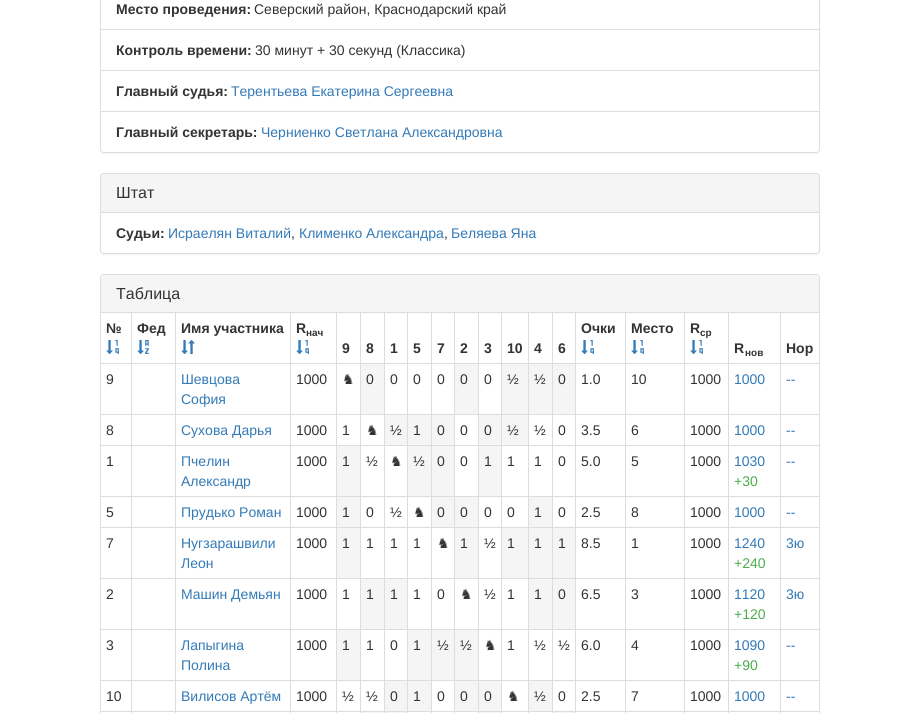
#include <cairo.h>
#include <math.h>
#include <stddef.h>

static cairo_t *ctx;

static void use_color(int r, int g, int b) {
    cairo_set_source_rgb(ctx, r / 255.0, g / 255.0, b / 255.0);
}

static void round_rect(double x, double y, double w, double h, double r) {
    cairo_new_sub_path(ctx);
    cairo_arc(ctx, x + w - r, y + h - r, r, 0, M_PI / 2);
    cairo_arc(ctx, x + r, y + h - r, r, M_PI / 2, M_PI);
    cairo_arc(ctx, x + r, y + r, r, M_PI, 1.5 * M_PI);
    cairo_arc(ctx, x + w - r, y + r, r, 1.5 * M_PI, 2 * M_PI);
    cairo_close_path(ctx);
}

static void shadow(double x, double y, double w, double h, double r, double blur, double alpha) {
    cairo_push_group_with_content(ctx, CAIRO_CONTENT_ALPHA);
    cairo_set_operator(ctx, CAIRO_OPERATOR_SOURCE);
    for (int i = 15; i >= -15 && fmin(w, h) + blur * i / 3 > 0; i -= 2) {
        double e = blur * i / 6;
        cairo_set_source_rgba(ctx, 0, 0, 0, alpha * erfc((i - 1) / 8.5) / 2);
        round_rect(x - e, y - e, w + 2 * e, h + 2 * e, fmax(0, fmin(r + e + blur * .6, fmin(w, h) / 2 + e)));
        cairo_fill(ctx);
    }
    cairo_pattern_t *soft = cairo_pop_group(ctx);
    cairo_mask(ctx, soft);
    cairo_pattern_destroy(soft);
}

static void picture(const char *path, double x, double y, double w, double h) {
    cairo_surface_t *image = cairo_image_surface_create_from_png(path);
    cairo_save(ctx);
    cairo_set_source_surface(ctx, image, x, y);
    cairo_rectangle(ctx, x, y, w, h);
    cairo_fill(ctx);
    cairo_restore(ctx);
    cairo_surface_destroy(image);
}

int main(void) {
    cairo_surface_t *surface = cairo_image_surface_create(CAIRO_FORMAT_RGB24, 919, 713);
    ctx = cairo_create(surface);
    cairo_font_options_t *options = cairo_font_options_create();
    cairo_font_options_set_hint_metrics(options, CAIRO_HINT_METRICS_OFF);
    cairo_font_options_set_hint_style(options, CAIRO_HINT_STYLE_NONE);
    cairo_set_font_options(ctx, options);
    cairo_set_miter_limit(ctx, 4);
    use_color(255, 255, 255);
    cairo_paint(ctx);
    use_color(0, 0, 0);
    shadow(100, -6, 720, 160, 4, 0.5, 0.05);
    use_color(255, 255, 255);
    round_rect(100.5, -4.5, 719, 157, 3.5);
    cairo_fill_preserve(ctx);
    use_color(221, 221, 221);
    cairo_set_line_width(ctx, 1);
    cairo_stroke(ctx);
    cairo_rectangle(ctx, 101, 29, 718, 1);
    cairo_fill(ctx);
    cairo_select_font_face(ctx, "Liberation Sans", CAIRO_FONT_SLANT_NORMAL, CAIRO_FONT_WEIGHT_BOLD);
    cairo_set_font_size(ctx, 14);
    use_color(51, 51, 51);
    cairo_move_to(ctx, 116, 14);
    cairo_show_text(ctx, "Место проведения:");
    cairo_select_font_face(ctx, "Liberation Sans", CAIRO_FONT_SLANT_NORMAL, CAIRO_FONT_WEIGHT_NORMAL);
    cairo_move_to(ctx, 254, 14);
    cairo_show_text(ctx, "Северский район, Краснодарский край");
    use_color(221, 221, 221);
    cairo_rectangle(ctx, 101, 70, 718, 1);
    cairo_fill(ctx);
    cairo_select_font_face(ctx, "Liberation Sans", CAIRO_FONT_SLANT_NORMAL, CAIRO_FONT_WEIGHT_BOLD);
    use_color(51, 51, 51);
    cairo_move_to(ctx, 116, 55);
    cairo_show_text(ctx, "Контроль времени:");
    cairo_select_font_face(ctx, "Liberation Sans", CAIRO_FONT_SLANT_NORMAL, CAIRO_FONT_WEIGHT_NORMAL);
    cairo_move_to(ctx, 255, 55);
    cairo_show_text(ctx, "30 минут + 30 секунд (Классика)");
    cairo_select_font_face(ctx, "Liberation Sans", CAIRO_FONT_SLANT_NORMAL, CAIRO_FONT_WEIGHT_BOLD);
    cairo_move_to(ctx, 116, 96);
    cairo_show_text(ctx, "Главный судья:");
    cairo_select_font_face(ctx, "Liberation Sans", CAIRO_FONT_SLANT_NORMAL, CAIRO_FONT_WEIGHT_NORMAL);
    use_color(51, 122, 183);
    cairo_move_to(ctx, 231, 96);
    cairo_show_text(ctx, "Терентьева Екатерина Сергеевна");
    use_color(255, 255, 255);
    cairo_new_path(ctx);
    cairo_move_to(ctx, 101, 111);
    cairo_line_to(ctx, 819, 111);
    cairo_line_to(ctx, 819, 149);
    cairo_curve_to(ctx, 819, 150.5, 817.5, 152, 816, 152);
    cairo_line_to(ctx, 104, 152);
    cairo_curve_to(ctx, 102.5, 152, 101, 150.5, 101, 149);
    cairo_close_path(ctx);
    cairo_fill(ctx);
    use_color(221, 221, 221);
    cairo_rectangle(ctx, 101, 111, 718, 1);
    cairo_fill(ctx);
    cairo_select_font_face(ctx, "Liberation Sans", CAIRO_FONT_SLANT_NORMAL, CAIRO_FONT_WEIGHT_BOLD);
    use_color(51, 51, 51);
    cairo_move_to(ctx, 116, 137);
    cairo_show_text(ctx, "Главный секретарь:");
    cairo_select_font_face(ctx, "Liberation Sans", CAIRO_FONT_SLANT_NORMAL, CAIRO_FONT_WEIGHT_NORMAL);
    use_color(51, 122, 183);
    cairo_move_to(ctx, 261, 137);
    cairo_show_text(ctx, "Черниенко Светлана Александровна");
    use_color(0, 0, 0);
    shadow(100, 174, 720, 81, 4, 0.5, 0.05);
    round_rect(100.5, 173.5, 719, 80, 3.5);
    use_color(221, 221, 221);
    cairo_stroke(ctx);
    use_color(245, 245, 245);
    cairo_new_path(ctx);
    cairo_move_to(ctx, 104, 174);
    cairo_line_to(ctx, 816, 174);
    cairo_curve_to(ctx, 817.5, 174, 819, 175.5, 819, 177);
    cairo_line_to(ctx, 819, 213);
    cairo_line_to(ctx, 101, 213);
    cairo_line_to(ctx, 101, 177);
    cairo_curve_to(ctx, 101, 175.5, 102.5, 174, 104, 174);
    cairo_close_path(ctx);
    cairo_fill(ctx);
    use_color(221, 221, 221);
    cairo_rectangle(ctx, 101, 212, 718, 1);
    cairo_fill(ctx);
    cairo_set_font_size(ctx, 16);
    use_color(51, 51, 51);
    cairo_move_to(ctx, 116, 198);
    cairo_show_text(ctx, "Штат");
    use_color(255, 255, 255);
    cairo_new_path(ctx);
    cairo_move_to(ctx, 101, 213);
    cairo_line_to(ctx, 819, 213);
    cairo_line_to(ctx, 819, 250);
    cairo_curve_to(ctx, 819, 251.5, 817.5, 253, 816, 253);
    cairo_line_to(ctx, 104, 253);
    cairo_curve_to(ctx, 102.5, 253, 101, 251.5, 101, 250);
    cairo_close_path(ctx);
    cairo_fill(ctx);
    cairo_select_font_face(ctx, "Liberation Sans", CAIRO_FONT_SLANT_NORMAL, CAIRO_FONT_WEIGHT_BOLD);
    cairo_set_font_size(ctx, 14);
    use_color(51, 51, 51);
    cairo_move_to(ctx, 116, 238);
    cairo_show_text(ctx, "Судьи:");
    cairo_select_font_face(ctx, "Liberation Sans", CAIRO_FONT_SLANT_NORMAL, CAIRO_FONT_WEIGHT_NORMAL);
    use_color(51, 122, 183);
    cairo_move_to(ctx, 168, 238);
    cairo_show_text(ctx, "Исраелян Виталий");
    use_color(51, 51, 51);
    cairo_move_to(ctx, 291, 238);
    cairo_show_text(ctx, ",");
    use_color(51, 122, 183);
    cairo_move_to(ctx, 299, 238);
    cairo_show_text(ctx, "Клименко Александра");
    use_color(51, 51, 51);
    cairo_move_to(ctx, 444, 238);
    cairo_show_text(ctx, ",");
    use_color(51, 122, 183);
    cairo_move_to(ctx, 451, 238);
    cairo_show_text(ctx, "Беляева Яна");
    round_rect(100.5, 274.5, 719, 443, 3.5);
    use_color(221, 221, 221);
    cairo_stroke(ctx);
    use_color(245, 245, 245);
    cairo_new_path(ctx);
    cairo_move_to(ctx, 104, 275);
    cairo_line_to(ctx, 816, 275);
    cairo_curve_to(ctx, 817.5, 275, 819, 276.5, 819, 278);
    cairo_line_to(ctx, 819, 313);
    cairo_line_to(ctx, 101, 313);
    cairo_line_to(ctx, 101, 278);
    cairo_curve_to(ctx, 101, 276.5, 102.5, 275, 104, 275);
    cairo_close_path(ctx);
    cairo_fill(ctx);
    use_color(221, 221, 221);
    cairo_rectangle(ctx, 101, 312, 718, 1);
    cairo_fill(ctx);
    cairo_set_font_size(ctx, 16);
    use_color(51, 51, 51);
    cairo_move_to(ctx, 116, 299);
    cairo_show_text(ctx, "Таблица");
    cairo_select_font_face(ctx, "Liberation Sans", CAIRO_FONT_SLANT_NORMAL, CAIRO_FONT_WEIGHT_BOLD);
    cairo_set_font_size(ctx, 14);
    cairo_move_to(ctx, 106, 333);
    cairo_show_text(ctx, "№");
    picture("img1.png", 106, 340, 13, 14);
    use_color(221, 221, 221);
    cairo_rectangle(ctx, 780, 363, 39, 1);
    cairo_fill(ctx);
    cairo_rectangle(ctx, 780, 414, 39, 1);
    cairo_fill(ctx);
    cairo_rectangle(ctx, 780, 445, 39, 1);
    cairo_fill(ctx);
    cairo_rectangle(ctx, 780, 496, 39, 1);
    cairo_fill(ctx);
    cairo_rectangle(ctx, 780, 527, 39, 1);
    cairo_fill(ctx);
    cairo_rectangle(ctx, 780, 578, 39, 1);
    cairo_fill(ctx);
    cairo_rectangle(ctx, 780, 629, 39, 1);
    cairo_fill(ctx);
    cairo_rectangle(ctx, 780, 680, 39, 1);
    cairo_fill(ctx);
    cairo_rectangle(ctx, 780, 711, 39, 1);
    cairo_fill(ctx);
    cairo_rectangle(ctx, 780, 711, 1, 2);
    cairo_fill(ctx);
    cairo_rectangle(ctx, 728, 711, 53, 1);
    cairo_fill(ctx);
    cairo_rectangle(ctx, 780, 680, 1, 32);
    cairo_fill(ctx);
    cairo_rectangle(ctx, 728, 680, 53, 1);
    cairo_fill(ctx);
    cairo_rectangle(ctx, 780, 629, 1, 52);
    cairo_fill(ctx);
    cairo_rectangle(ctx, 728, 629, 53, 1);
    cairo_fill(ctx);
    cairo_rectangle(ctx, 780, 578, 1, 52);
    cairo_fill(ctx);
    cairo_rectangle(ctx, 728, 578, 53, 1);
    cairo_fill(ctx);
    cairo_rectangle(ctx, 780, 527, 1, 52);
    cairo_fill(ctx);
    cairo_rectangle(ctx, 728, 527, 53, 1);
    cairo_fill(ctx);
    cairo_rectangle(ctx, 780, 496, 1, 32);
    cairo_fill(ctx);
    cairo_rectangle(ctx, 728, 496, 53, 1);
    cairo_fill(ctx);
    cairo_rectangle(ctx, 780, 445, 1, 52);
    cairo_fill(ctx);
    cairo_rectangle(ctx, 728, 445, 53, 1);
    cairo_fill(ctx);
    cairo_rectangle(ctx, 780, 414, 1, 32);
    cairo_fill(ctx);
    cairo_rectangle(ctx, 728, 414, 53, 1);
    cairo_fill(ctx);
    cairo_rectangle(ctx, 780, 363, 1, 52);
    cairo_fill(ctx);
    cairo_rectangle(ctx, 728, 363, 53, 1);
    cairo_fill(ctx);
    cairo_rectangle(ctx, 728, 711, 1, 2);
    cairo_fill(ctx);
    cairo_rectangle(ctx, 684, 711, 45, 1);
    cairo_fill(ctx);
    cairo_rectangle(ctx, 728, 680, 1, 32);
    cairo_fill(ctx);
    cairo_rectangle(ctx, 684, 680, 45, 1);
    cairo_fill(ctx);
    cairo_rectangle(ctx, 728, 629, 1, 52);
    cairo_fill(ctx);
    cairo_rectangle(ctx, 684, 629, 45, 1);
    cairo_fill(ctx);
    cairo_rectangle(ctx, 728, 578, 1, 52);
    cairo_fill(ctx);
    cairo_rectangle(ctx, 684, 578, 45, 1);
    cairo_fill(ctx);
    cairo_rectangle(ctx, 728, 527, 1, 52);
    cairo_fill(ctx);
    cairo_rectangle(ctx, 684, 527, 45, 1);
    cairo_fill(ctx);
    cairo_rectangle(ctx, 728, 496, 1, 32);
    cairo_fill(ctx);
    cairo_rectangle(ctx, 684, 496, 45, 1);
    cairo_fill(ctx);
    cairo_rectangle(ctx, 728, 445, 1, 52);
    cairo_fill(ctx);
    cairo_rectangle(ctx, 684, 445, 45, 1);
    cairo_fill(ctx);
    cairo_rectangle(ctx, 728, 414, 1, 32);
    cairo_fill(ctx);
    cairo_rectangle(ctx, 684, 414, 45, 1);
    cairo_fill(ctx);
    cairo_rectangle(ctx, 728, 363, 1, 52);
    cairo_fill(ctx);
    cairo_rectangle(ctx, 684, 363, 45, 1);
    cairo_fill(ctx);
    cairo_rectangle(ctx, 684, 711, 1, 2);
    cairo_fill(ctx);
    cairo_rectangle(ctx, 625, 711, 60, 1);
    cairo_fill(ctx);
    cairo_rectangle(ctx, 684, 680, 1, 32);
    cairo_fill(ctx);
    cairo_rectangle(ctx, 625, 680, 60, 1);
    cairo_fill(ctx);
    cairo_rectangle(ctx, 684, 629, 1, 52);
    cairo_fill(ctx);
    cairo_rectangle(ctx, 625, 629, 60, 1);
    cairo_fill(ctx);
    cairo_rectangle(ctx, 684, 578, 1, 52);
    cairo_fill(ctx);
    cairo_rectangle(ctx, 625, 578, 60, 1);
    cairo_fill(ctx);
    cairo_rectangle(ctx, 684, 527, 1, 52);
    cairo_fill(ctx);
    cairo_rectangle(ctx, 625, 527, 60, 1);
    cairo_fill(ctx);
    cairo_rectangle(ctx, 684, 496, 1, 32);
    cairo_fill(ctx);
    cairo_rectangle(ctx, 625, 496, 60, 1);
    cairo_fill(ctx);
    cairo_rectangle(ctx, 684, 445, 1, 52);
    cairo_fill(ctx);
    cairo_rectangle(ctx, 625, 445, 60, 1);
    cairo_fill(ctx);
    cairo_rectangle(ctx, 684, 414, 1, 32);
    cairo_fill(ctx);
    cairo_rectangle(ctx, 625, 414, 60, 1);
    cairo_fill(ctx);
    cairo_rectangle(ctx, 684, 363, 1, 52);
    cairo_fill(ctx);
    cairo_rectangle(ctx, 625, 363, 60, 1);
    cairo_fill(ctx);
    cairo_rectangle(ctx, 625, 711, 1, 2);
    cairo_fill(ctx);
    cairo_rectangle(ctx, 575, 711, 51, 1);
    cairo_fill(ctx);
    cairo_rectangle(ctx, 625, 680, 1, 32);
    cairo_fill(ctx);
    cairo_rectangle(ctx, 575, 680, 51, 1);
    cairo_fill(ctx);
    cairo_rectangle(ctx, 625, 629, 1, 52);
    cairo_fill(ctx);
    cairo_rectangle(ctx, 575, 629, 51, 1);
    cairo_fill(ctx);
    cairo_rectangle(ctx, 625, 578, 1, 52);
    cairo_fill(ctx);
    cairo_rectangle(ctx, 575, 578, 51, 1);
    cairo_fill(ctx);
    cairo_rectangle(ctx, 625, 527, 1, 52);
    cairo_fill(ctx);
    cairo_rectangle(ctx, 575, 527, 51, 1);
    cairo_fill(ctx);
    cairo_rectangle(ctx, 625, 496, 1, 32);
    cairo_fill(ctx);
    cairo_rectangle(ctx, 575, 496, 51, 1);
    cairo_fill(ctx);
    cairo_rectangle(ctx, 625, 445, 1, 52);
    cairo_fill(ctx);
    cairo_rectangle(ctx, 575, 445, 51, 1);
    cairo_fill(ctx);
    cairo_rectangle(ctx, 625, 414, 1, 32);
    cairo_fill(ctx);
    cairo_rectangle(ctx, 575, 414, 51, 1);
    cairo_fill(ctx);
    cairo_rectangle(ctx, 625, 363, 1, 52);
    cairo_fill(ctx);
    cairo_rectangle(ctx, 575, 363, 51, 1);
    cairo_fill(ctx);
    use_color(245, 245, 245);
    cairo_rectangle(ctx, 552, 712, 24, 1);
    cairo_fill(ctx);
    use_color(221, 221, 221);
    cairo_rectangle(ctx, 575, 711, 1, 2);
    cairo_fill(ctx);
    cairo_rectangle(ctx, 552, 711, 24, 1);
    cairo_fill(ctx);
    cairo_rectangle(ctx, 575, 680, 1, 32);
    cairo_fill(ctx);
    cairo_rectangle(ctx, 552, 680, 24, 1);
    cairo_fill(ctx);
    cairo_rectangle(ctx, 575, 629, 1, 52);
    cairo_fill(ctx);
    cairo_rectangle(ctx, 552, 629, 24, 1);
    cairo_fill(ctx);
    cairo_rectangle(ctx, 575, 578, 1, 52);
    cairo_fill(ctx);
    cairo_rectangle(ctx, 552, 578, 24, 1);
    cairo_fill(ctx);
    cairo_rectangle(ctx, 575, 527, 1, 52);
    cairo_fill(ctx);
    cairo_rectangle(ctx, 552, 527, 24, 1);
    cairo_fill(ctx);
    cairo_rectangle(ctx, 575, 496, 1, 32);
    cairo_fill(ctx);
    cairo_rectangle(ctx, 552, 496, 24, 1);
    cairo_fill(ctx);
    cairo_rectangle(ctx, 575, 445, 1, 52);
    cairo_fill(ctx);
    cairo_rectangle(ctx, 552, 445, 24, 1);
    cairo_fill(ctx);
    cairo_rectangle(ctx, 575, 414, 1, 32);
    cairo_fill(ctx);
    cairo_rectangle(ctx, 552, 414, 24, 1);
    cairo_fill(ctx);
    cairo_rectangle(ctx, 575, 363, 1, 52);
    cairo_fill(ctx);
    cairo_rectangle(ctx, 552, 363, 24, 1);
    cairo_fill(ctx);
    cairo_rectangle(ctx, 552, 711, 1, 2);
    cairo_fill(ctx);
    cairo_rectangle(ctx, 528, 711, 25, 1);
    cairo_fill(ctx);
    cairo_rectangle(ctx, 552, 680, 1, 32);
    cairo_fill(ctx);
    cairo_rectangle(ctx, 528, 680, 25, 1);
    cairo_fill(ctx);
    cairo_rectangle(ctx, 552, 629, 1, 52);
    cairo_fill(ctx);
    cairo_rectangle(ctx, 528, 629, 25, 1);
    cairo_fill(ctx);
    cairo_rectangle(ctx, 552, 578, 1, 52);
    cairo_fill(ctx);
    cairo_rectangle(ctx, 528, 578, 25, 1);
    cairo_fill(ctx);
    cairo_rectangle(ctx, 552, 527, 1, 52);
    cairo_fill(ctx);
    cairo_rectangle(ctx, 528, 527, 25, 1);
    cairo_fill(ctx);
    cairo_rectangle(ctx, 552, 496, 1, 32);
    cairo_fill(ctx);
    cairo_rectangle(ctx, 528, 496, 25, 1);
    cairo_fill(ctx);
    cairo_rectangle(ctx, 552, 445, 1, 52);
    cairo_fill(ctx);
    cairo_rectangle(ctx, 528, 445, 25, 1);
    cairo_fill(ctx);
    cairo_rectangle(ctx, 552, 414, 1, 32);
    cairo_fill(ctx);
    cairo_rectangle(ctx, 528, 414, 25, 1);
    cairo_fill(ctx);
    cairo_rectangle(ctx, 552, 363, 1, 52);
    cairo_fill(ctx);
    cairo_rectangle(ctx, 528, 363, 25, 1);
    cairo_fill(ctx);
    cairo_rectangle(ctx, 528, 711, 1, 2);
    cairo_fill(ctx);
    cairo_rectangle(ctx, 501, 711, 28, 1);
    cairo_fill(ctx);
    cairo_rectangle(ctx, 528, 680, 1, 32);
    cairo_fill(ctx);
    cairo_rectangle(ctx, 501, 680, 28, 1);
    cairo_fill(ctx);
    cairo_rectangle(ctx, 528, 629, 1, 52);
    cairo_fill(ctx);
    cairo_rectangle(ctx, 501, 629, 28, 1);
    cairo_fill(ctx);
    cairo_rectangle(ctx, 528, 578, 1, 52);
    cairo_fill(ctx);
    cairo_rectangle(ctx, 501, 578, 28, 1);
    cairo_fill(ctx);
    cairo_rectangle(ctx, 528, 527, 1, 52);
    cairo_fill(ctx);
    cairo_rectangle(ctx, 501, 527, 28, 1);
    cairo_fill(ctx);
    cairo_rectangle(ctx, 528, 496, 1, 32);
    cairo_fill(ctx);
    cairo_rectangle(ctx, 501, 496, 28, 1);
    cairo_fill(ctx);
    cairo_rectangle(ctx, 528, 445, 1, 52);
    cairo_fill(ctx);
    cairo_rectangle(ctx, 501, 445, 28, 1);
    cairo_fill(ctx);
    cairo_rectangle(ctx, 528, 414, 1, 32);
    cairo_fill(ctx);
    cairo_rectangle(ctx, 501, 414, 28, 1);
    cairo_fill(ctx);
    cairo_rectangle(ctx, 528, 363, 1, 52);
    cairo_fill(ctx);
    cairo_rectangle(ctx, 501, 363, 28, 1);
    cairo_fill(ctx);
    use_color(245, 245, 245);
    cairo_rectangle(ctx, 478, 712, 24, 1);
    cairo_fill(ctx);
    use_color(221, 221, 221);
    cairo_rectangle(ctx, 501, 711, 1, 2);
    cairo_fill(ctx);
    cairo_rectangle(ctx, 478, 711, 24, 1);
    cairo_fill(ctx);
    cairo_rectangle(ctx, 501, 680, 1, 32);
    cairo_fill(ctx);
    cairo_rectangle(ctx, 478, 680, 24, 1);
    cairo_fill(ctx);
    cairo_rectangle(ctx, 501, 629, 1, 52);
    cairo_fill(ctx);
    cairo_rectangle(ctx, 478, 629, 24, 1);
    cairo_fill(ctx);
    cairo_rectangle(ctx, 501, 578, 1, 52);
    cairo_fill(ctx);
    cairo_rectangle(ctx, 478, 578, 24, 1);
    cairo_fill(ctx);
    cairo_rectangle(ctx, 501, 527, 1, 52);
    cairo_fill(ctx);
    cairo_rectangle(ctx, 478, 527, 24, 1);
    cairo_fill(ctx);
    cairo_rectangle(ctx, 501, 496, 1, 32);
    cairo_fill(ctx);
    cairo_rectangle(ctx, 478, 496, 24, 1);
    cairo_fill(ctx);
    cairo_rectangle(ctx, 501, 445, 1, 52);
    cairo_fill(ctx);
    cairo_rectangle(ctx, 478, 445, 24, 1);
    cairo_fill(ctx);
    cairo_rectangle(ctx, 501, 414, 1, 32);
    cairo_fill(ctx);
    cairo_rectangle(ctx, 478, 414, 24, 1);
    cairo_fill(ctx);
    cairo_rectangle(ctx, 501, 363, 1, 52);
    cairo_fill(ctx);
    cairo_rectangle(ctx, 478, 363, 24, 1);
    cairo_fill(ctx);
    cairo_rectangle(ctx, 478, 711, 1, 2);
    cairo_fill(ctx);
    cairo_rectangle(ctx, 454, 711, 25, 1);
    cairo_fill(ctx);
    cairo_rectangle(ctx, 478, 680, 1, 32);
    cairo_fill(ctx);
    cairo_rectangle(ctx, 454, 680, 25, 1);
    cairo_fill(ctx);
    cairo_rectangle(ctx, 478, 629, 1, 52);
    cairo_fill(ctx);
    cairo_rectangle(ctx, 454, 629, 25, 1);
    cairo_fill(ctx);
    cairo_rectangle(ctx, 478, 578, 1, 52);
    cairo_fill(ctx);
    cairo_rectangle(ctx, 454, 578, 25, 1);
    cairo_fill(ctx);
    cairo_rectangle(ctx, 478, 527, 1, 52);
    cairo_fill(ctx);
    cairo_rectangle(ctx, 454, 527, 25, 1);
    cairo_fill(ctx);
    cairo_rectangle(ctx, 478, 496, 1, 32);
    cairo_fill(ctx);
    cairo_rectangle(ctx, 454, 496, 25, 1);
    cairo_fill(ctx);
    cairo_rectangle(ctx, 478, 445, 1, 52);
    cairo_fill(ctx);
    cairo_rectangle(ctx, 454, 445, 25, 1);
    cairo_fill(ctx);
    cairo_rectangle(ctx, 478, 414, 1, 32);
    cairo_fill(ctx);
    cairo_rectangle(ctx, 454, 414, 25, 1);
    cairo_fill(ctx);
    cairo_rectangle(ctx, 478, 363, 1, 52);
    cairo_fill(ctx);
    cairo_rectangle(ctx, 454, 363, 25, 1);
    cairo_fill(ctx);
    cairo_rectangle(ctx, 454, 711, 1, 2);
    cairo_fill(ctx);
    cairo_rectangle(ctx, 431, 711, 24, 1);
    cairo_fill(ctx);
    cairo_rectangle(ctx, 454, 680, 1, 32);
    cairo_fill(ctx);
    cairo_rectangle(ctx, 431, 680, 24, 1);
    cairo_fill(ctx);
    cairo_rectangle(ctx, 454, 629, 1, 52);
    cairo_fill(ctx);
    cairo_rectangle(ctx, 431, 629, 24, 1);
    cairo_fill(ctx);
    cairo_rectangle(ctx, 454, 578, 1, 52);
    cairo_fill(ctx);
    cairo_rectangle(ctx, 431, 578, 24, 1);
    cairo_fill(ctx);
    cairo_rectangle(ctx, 454, 527, 1, 52);
    cairo_fill(ctx);
    cairo_rectangle(ctx, 431, 527, 24, 1);
    cairo_fill(ctx);
    cairo_rectangle(ctx, 454, 496, 1, 32);
    cairo_fill(ctx);
    cairo_rectangle(ctx, 431, 496, 24, 1);
    cairo_fill(ctx);
    cairo_rectangle(ctx, 454, 445, 1, 52);
    cairo_fill(ctx);
    cairo_rectangle(ctx, 431, 445, 24, 1);
    cairo_fill(ctx);
    cairo_rectangle(ctx, 454, 414, 1, 32);
    cairo_fill(ctx);
    cairo_rectangle(ctx, 431, 414, 24, 1);
    cairo_fill(ctx);
    cairo_rectangle(ctx, 454, 363, 1, 52);
    cairo_fill(ctx);
    cairo_rectangle(ctx, 431, 363, 24, 1);
    cairo_fill(ctx);
    cairo_rectangle(ctx, 431, 711, 1, 2);
    cairo_fill(ctx);
    cairo_rectangle(ctx, 407, 711, 25, 1);
    cairo_fill(ctx);
    cairo_rectangle(ctx, 431, 680, 1, 32);
    cairo_fill(ctx);
    cairo_rectangle(ctx, 407, 680, 25, 1);
    cairo_fill(ctx);
    cairo_rectangle(ctx, 431, 629, 1, 52);
    cairo_fill(ctx);
    cairo_rectangle(ctx, 407, 629, 25, 1);
    cairo_fill(ctx);
    cairo_rectangle(ctx, 431, 578, 1, 52);
    cairo_fill(ctx);
    cairo_rectangle(ctx, 407, 578, 25, 1);
    cairo_fill(ctx);
    cairo_rectangle(ctx, 431, 527, 1, 52);
    cairo_fill(ctx);
    cairo_rectangle(ctx, 407, 527, 25, 1);
    cairo_fill(ctx);
    cairo_rectangle(ctx, 431, 496, 1, 32);
    cairo_fill(ctx);
    cairo_rectangle(ctx, 407, 496, 25, 1);
    cairo_fill(ctx);
    cairo_rectangle(ctx, 431, 445, 1, 52);
    cairo_fill(ctx);
    cairo_rectangle(ctx, 407, 445, 25, 1);
    cairo_fill(ctx);
    cairo_rectangle(ctx, 431, 414, 1, 32);
    cairo_fill(ctx);
    cairo_rectangle(ctx, 407, 414, 25, 1);
    cairo_fill(ctx);
    cairo_rectangle(ctx, 431, 363, 1, 52);
    cairo_fill(ctx);
    cairo_rectangle(ctx, 407, 363, 25, 1);
    cairo_fill(ctx);
    use_color(245, 245, 245);
    cairo_rectangle(ctx, 361, 712, 47, 1);
    cairo_fill(ctx);
    use_color(221, 221, 221);
    cairo_rectangle(ctx, 407, 711, 1, 2);
    cairo_fill(ctx);
    cairo_rectangle(ctx, 384, 711, 24, 1);
    cairo_fill(ctx);
    cairo_rectangle(ctx, 407, 680, 1, 32);
    cairo_fill(ctx);
    cairo_rectangle(ctx, 384, 680, 24, 1);
    cairo_fill(ctx);
    cairo_rectangle(ctx, 407, 629, 1, 52);
    cairo_fill(ctx);
    cairo_rectangle(ctx, 384, 629, 24, 1);
    cairo_fill(ctx);
    cairo_rectangle(ctx, 407, 578, 1, 52);
    cairo_fill(ctx);
    cairo_rectangle(ctx, 384, 578, 24, 1);
    cairo_fill(ctx);
    cairo_rectangle(ctx, 407, 527, 1, 52);
    cairo_fill(ctx);
    cairo_rectangle(ctx, 384, 527, 24, 1);
    cairo_fill(ctx);
    cairo_rectangle(ctx, 407, 496, 1, 32);
    cairo_fill(ctx);
    cairo_rectangle(ctx, 384, 496, 24, 1);
    cairo_fill(ctx);
    cairo_rectangle(ctx, 407, 445, 1, 52);
    cairo_fill(ctx);
    cairo_rectangle(ctx, 384, 445, 24, 1);
    cairo_fill(ctx);
    cairo_rectangle(ctx, 407, 414, 1, 32);
    cairo_fill(ctx);
    cairo_rectangle(ctx, 384, 414, 24, 1);
    cairo_fill(ctx);
    cairo_rectangle(ctx, 407, 363, 1, 52);
    cairo_fill(ctx);
    cairo_rectangle(ctx, 384, 363, 24, 1);
    cairo_fill(ctx);
    cairo_rectangle(ctx, 384, 711, 1, 2);
    cairo_fill(ctx);
    cairo_rectangle(ctx, 360, 711, 25, 1);
    cairo_fill(ctx);
    cairo_rectangle(ctx, 384, 680, 1, 32);
    cairo_fill(ctx);
    cairo_rectangle(ctx, 360, 680, 25, 1);
    cairo_fill(ctx);
    cairo_rectangle(ctx, 384, 629, 1, 52);
    cairo_fill(ctx);
    cairo_rectangle(ctx, 360, 629, 25, 1);
    cairo_fill(ctx);
    cairo_rectangle(ctx, 384, 578, 1, 52);
    cairo_fill(ctx);
    cairo_rectangle(ctx, 360, 578, 25, 1);
    cairo_fill(ctx);
    cairo_rectangle(ctx, 384, 527, 1, 52);
    cairo_fill(ctx);
    cairo_rectangle(ctx, 360, 527, 25, 1);
    cairo_fill(ctx);
    cairo_rectangle(ctx, 384, 496, 1, 32);
    cairo_fill(ctx);
    cairo_rectangle(ctx, 360, 496, 25, 1);
    cairo_fill(ctx);
    cairo_rectangle(ctx, 384, 445, 1, 52);
    cairo_fill(ctx);
    cairo_rectangle(ctx, 360, 445, 25, 1);
    cairo_fill(ctx);
    cairo_rectangle(ctx, 384, 414, 1, 32);
    cairo_fill(ctx);
    cairo_rectangle(ctx, 360, 414, 25, 1);
    cairo_fill(ctx);
    cairo_rectangle(ctx, 384, 363, 1, 52);
    cairo_fill(ctx);
    cairo_rectangle(ctx, 360, 363, 25, 1);
    cairo_fill(ctx);
    cairo_rectangle(ctx, 360, 711, 1, 2);
    cairo_fill(ctx);
    cairo_rectangle(ctx, 336, 711, 25, 1);
    cairo_fill(ctx);
    cairo_rectangle(ctx, 360, 680, 1, 32);
    cairo_fill(ctx);
    cairo_rectangle(ctx, 336, 680, 25, 1);
    cairo_fill(ctx);
    cairo_rectangle(ctx, 360, 629, 1, 52);
    cairo_fill(ctx);
    cairo_rectangle(ctx, 336, 629, 25, 1);
    cairo_fill(ctx);
    cairo_rectangle(ctx, 360, 578, 1, 52);
    cairo_fill(ctx);
    cairo_rectangle(ctx, 336, 578, 25, 1);
    cairo_fill(ctx);
    cairo_rectangle(ctx, 360, 527, 1, 52);
    cairo_fill(ctx);
    cairo_rectangle(ctx, 336, 527, 25, 1);
    cairo_fill(ctx);
    cairo_rectangle(ctx, 360, 496, 1, 32);
    cairo_fill(ctx);
    cairo_rectangle(ctx, 336, 496, 25, 1);
    cairo_fill(ctx);
    cairo_rectangle(ctx, 360, 445, 1, 52);
    cairo_fill(ctx);
    cairo_rectangle(ctx, 336, 445, 25, 1);
    cairo_fill(ctx);
    cairo_rectangle(ctx, 360, 414, 1, 32);
    cairo_fill(ctx);
    cairo_rectangle(ctx, 336, 414, 25, 1);
    cairo_fill(ctx);
    cairo_rectangle(ctx, 360, 363, 1, 52);
    cairo_fill(ctx);
    cairo_rectangle(ctx, 336, 363, 25, 1);
    cairo_fill(ctx);
    cairo_rectangle(ctx, 336, 711, 1, 2);
    cairo_fill(ctx);
    cairo_rectangle(ctx, 290, 711, 47, 1);
    cairo_fill(ctx);
    cairo_rectangle(ctx, 336, 680, 1, 32);
    cairo_fill(ctx);
    cairo_rectangle(ctx, 290, 680, 47, 1);
    cairo_fill(ctx);
    cairo_rectangle(ctx, 336, 629, 1, 52);
    cairo_fill(ctx);
    cairo_rectangle(ctx, 290, 629, 47, 1);
    cairo_fill(ctx);
    cairo_rectangle(ctx, 336, 578, 1, 52);
    cairo_fill(ctx);
    cairo_rectangle(ctx, 290, 578, 47, 1);
    cairo_fill(ctx);
    cairo_rectangle(ctx, 336, 527, 1, 52);
    cairo_fill(ctx);
    cairo_rectangle(ctx, 290, 527, 47, 1);
    cairo_fill(ctx);
    cairo_rectangle(ctx, 336, 496, 1, 32);
    cairo_fill(ctx);
    cairo_rectangle(ctx, 290, 496, 47, 1);
    cairo_fill(ctx);
    cairo_rectangle(ctx, 336, 445, 1, 52);
    cairo_fill(ctx);
    cairo_rectangle(ctx, 290, 445, 47, 1);
    cairo_fill(ctx);
    cairo_rectangle(ctx, 336, 414, 1, 32);
    cairo_fill(ctx);
    cairo_rectangle(ctx, 290, 414, 47, 1);
    cairo_fill(ctx);
    cairo_rectangle(ctx, 336, 363, 1, 52);
    cairo_fill(ctx);
    cairo_rectangle(ctx, 290, 363, 47, 1);
    cairo_fill(ctx);
    cairo_rectangle(ctx, 290, 711, 1, 2);
    cairo_fill(ctx);
    cairo_rectangle(ctx, 175, 711, 116, 1);
    cairo_fill(ctx);
    cairo_rectangle(ctx, 290, 680, 1, 32);
    cairo_fill(ctx);
    cairo_rectangle(ctx, 175, 680, 116, 1);
    cairo_fill(ctx);
    cairo_rectangle(ctx, 290, 629, 1, 52);
    cairo_fill(ctx);
    cairo_rectangle(ctx, 175, 629, 116, 1);
    cairo_fill(ctx);
    cairo_rectangle(ctx, 290, 578, 1, 52);
    cairo_fill(ctx);
    cairo_rectangle(ctx, 175, 578, 116, 1);
    cairo_fill(ctx);
    cairo_rectangle(ctx, 290, 527, 1, 52);
    cairo_fill(ctx);
    cairo_rectangle(ctx, 175, 527, 116, 1);
    cairo_fill(ctx);
    cairo_rectangle(ctx, 290, 496, 1, 32);
    cairo_fill(ctx);
    cairo_rectangle(ctx, 175, 496, 116, 1);
    cairo_fill(ctx);
    cairo_rectangle(ctx, 290, 445, 1, 52);
    cairo_fill(ctx);
    cairo_rectangle(ctx, 175, 445, 116, 1);
    cairo_fill(ctx);
    cairo_rectangle(ctx, 290, 414, 1, 32);
    cairo_fill(ctx);
    cairo_rectangle(ctx, 175, 414, 116, 1);
    cairo_fill(ctx);
    cairo_rectangle(ctx, 290, 363, 1, 52);
    cairo_fill(ctx);
    cairo_rectangle(ctx, 175, 363, 116, 1);
    cairo_fill(ctx);
    cairo_rectangle(ctx, 175, 711, 1, 2);
    cairo_fill(ctx);
    cairo_rectangle(ctx, 131, 711, 45, 1);
    cairo_fill(ctx);
    cairo_rectangle(ctx, 175, 680, 1, 32);
    cairo_fill(ctx);
    cairo_rectangle(ctx, 131, 680, 45, 1);
    cairo_fill(ctx);
    cairo_rectangle(ctx, 175, 629, 1, 52);
    cairo_fill(ctx);
    cairo_rectangle(ctx, 131, 629, 45, 1);
    cairo_fill(ctx);
    cairo_rectangle(ctx, 175, 578, 1, 52);
    cairo_fill(ctx);
    cairo_rectangle(ctx, 131, 578, 45, 1);
    cairo_fill(ctx);
    cairo_rectangle(ctx, 175, 527, 1, 52);
    cairo_fill(ctx);
    cairo_rectangle(ctx, 131, 527, 45, 1);
    cairo_fill(ctx);
    cairo_rectangle(ctx, 175, 496, 1, 32);
    cairo_fill(ctx);
    cairo_rectangle(ctx, 131, 496, 45, 1);
    cairo_fill(ctx);
    cairo_rectangle(ctx, 175, 445, 1, 52);
    cairo_fill(ctx);
    cairo_rectangle(ctx, 131, 445, 45, 1);
    cairo_fill(ctx);
    cairo_rectangle(ctx, 175, 414, 1, 32);
    cairo_fill(ctx);
    cairo_rectangle(ctx, 131, 414, 45, 1);
    cairo_fill(ctx);
    cairo_rectangle(ctx, 175, 363, 1, 52);
    cairo_fill(ctx);
    cairo_rectangle(ctx, 131, 363, 45, 1);
    cairo_fill(ctx);
    cairo_rectangle(ctx, 131, 711, 1, 2);
    cairo_fill(ctx);
    cairo_rectangle(ctx, 100, 711, 32, 1);
    cairo_fill(ctx);
    cairo_rectangle(ctx, 131, 680, 1, 32);
    cairo_fill(ctx);
    cairo_rectangle(ctx, 100, 680, 32, 1);
    cairo_fill(ctx);
    cairo_rectangle(ctx, 131, 629, 1, 52);
    cairo_fill(ctx);
    cairo_rectangle(ctx, 100, 629, 32, 1);
    cairo_fill(ctx);
    cairo_rectangle(ctx, 131, 578, 1, 52);
    cairo_fill(ctx);
    cairo_rectangle(ctx, 100, 578, 32, 1);
    cairo_fill(ctx);
    cairo_rectangle(ctx, 131, 527, 1, 52);
    cairo_fill(ctx);
    cairo_rectangle(ctx, 100, 527, 32, 1);
    cairo_fill(ctx);
    cairo_rectangle(ctx, 131, 496, 1, 32);
    cairo_fill(ctx);
    cairo_rectangle(ctx, 100, 496, 32, 1);
    cairo_fill(ctx);
    cairo_rectangle(ctx, 131, 445, 1, 52);
    cairo_fill(ctx);
    cairo_rectangle(ctx, 100, 445, 32, 1);
    cairo_fill(ctx);
    cairo_rectangle(ctx, 131, 414, 1, 32);
    cairo_fill(ctx);
    cairo_rectangle(ctx, 100, 414, 32, 1);
    cairo_fill(ctx);
    cairo_rectangle(ctx, 131, 363, 1, 52);
    cairo_fill(ctx);
    cairo_rectangle(ctx, 100, 363, 32, 1);
    cairo_fill(ctx);
    cairo_rectangle(ctx, 131, 313, 1, 51);
    cairo_fill(ctx);
    use_color(51, 51, 51);
    cairo_move_to(ctx, 137, 333);
    cairo_show_text(ctx, "Фед");
    picture("img2.png", 137, 340, 12, 14);
    use_color(221, 221, 221);
    cairo_rectangle(ctx, 175, 313, 1, 51);
    cairo_fill(ctx);
    use_color(51, 51, 51);
    cairo_move_to(ctx, 181, 333);
    cairo_show_text(ctx, "Имя участника");
    picture("img3.png", 181, 340, 14, 14);
    use_color(221, 221, 221);
    cairo_rectangle(ctx, 290, 313, 1, 51);
    cairo_fill(ctx);
    use_color(51, 51, 51);
    cairo_move_to(ctx, 296, 333);
    cairo_show_text(ctx, "R");
    cairo_set_font_size(ctx, 10);
    cairo_move_to(ctx, 306, 336);
    cairo_show_text(ctx, "нач");
    picture("img1.png", 296, 340, 13, 14);
    use_color(221, 221, 221);
    cairo_rectangle(ctx, 575, 313, 1, 51);
    cairo_fill(ctx);
    cairo_set_font_size(ctx, 14);
    use_color(51, 51, 51);
    cairo_move_to(ctx, 581, 333);
    cairo_show_text(ctx, "Очки");
    picture("img1.png", 581, 340, 13, 14);
    use_color(221, 221, 221);
    cairo_rectangle(ctx, 625, 313, 1, 51);
    cairo_fill(ctx);
    use_color(51, 51, 51);
    cairo_move_to(ctx, 631, 333);
    cairo_show_text(ctx, "Место");
    picture("img1.png", 631, 340, 13, 14);
    use_color(221, 221, 221);
    cairo_rectangle(ctx, 684, 313, 1, 51);
    cairo_fill(ctx);
    use_color(51, 51, 51);
    cairo_move_to(ctx, 690, 333);
    cairo_show_text(ctx, "R");
    cairo_set_font_size(ctx, 10);
    cairo_move_to(ctx, 700, 336);
    cairo_show_text(ctx, "ср");
    picture("img1.png", 690, 340, 13, 14);
    use_color(221, 221, 221);
    cairo_rectangle(ctx, 336, 313, 1, 51);
    cairo_fill(ctx);
    cairo_set_font_size(ctx, 14);
    use_color(51, 51, 51);
    cairo_move_to(ctx, 342, 353);
    cairo_show_text(ctx, "9");
    use_color(221, 221, 221);
    cairo_rectangle(ctx, 360, 313, 1, 51);
    cairo_fill(ctx);
    use_color(51, 51, 51);
    cairo_move_to(ctx, 366, 353);
    cairo_show_text(ctx, "8");
    use_color(221, 221, 221);
    cairo_rectangle(ctx, 384, 313, 1, 51);
    cairo_fill(ctx);
    use_color(51, 51, 51);
    cairo_move_to(ctx, 390, 353);
    cairo_show_text(ctx, "1");
    use_color(221, 221, 221);
    cairo_rectangle(ctx, 407, 313, 1, 51);
    cairo_fill(ctx);
    use_color(51, 51, 51);
    cairo_move_to(ctx, 413, 353);
    cairo_show_text(ctx, "5");
    use_color(221, 221, 221);
    cairo_rectangle(ctx, 431, 313, 1, 51);
    cairo_fill(ctx);
    use_color(51, 51, 51);
    cairo_move_to(ctx, 437, 353);
    cairo_show_text(ctx, "7");
    use_color(221, 221, 221);
    cairo_rectangle(ctx, 454, 313, 1, 51);
    cairo_fill(ctx);
    use_color(51, 51, 51);
    cairo_move_to(ctx, 460, 353);
    cairo_show_text(ctx, "2");
    use_color(221, 221, 221);
    cairo_rectangle(ctx, 478, 313, 1, 51);
    cairo_fill(ctx);
    use_color(51, 51, 51);
    cairo_move_to(ctx, 484, 353);
    cairo_show_text(ctx, "3");
    use_color(221, 221, 221);
    cairo_rectangle(ctx, 501, 313, 1, 51);
    cairo_fill(ctx);
    use_color(51, 51, 51);
    cairo_move_to(ctx, 507, 353);
    cairo_show_text(ctx, "10");
    use_color(221, 221, 221);
    cairo_rectangle(ctx, 528, 313, 1, 51);
    cairo_fill(ctx);
    use_color(51, 51, 51);
    cairo_move_to(ctx, 534, 353);
    cairo_show_text(ctx, "4");
    use_color(221, 221, 221);
    cairo_rectangle(ctx, 552, 313, 1, 51);
    cairo_fill(ctx);
    use_color(51, 51, 51);
    cairo_move_to(ctx, 558, 353);
    cairo_show_text(ctx, "6");
    use_color(221, 221, 221);
    cairo_rectangle(ctx, 728, 313, 1, 51);
    cairo_fill(ctx);
    use_color(51, 51, 51);
    cairo_move_to(ctx, 734, 353);
    cairo_show_text(ctx, "R");
    cairo_set_font_size(ctx, 10);
    cairo_move_to(ctx, 745, 356);
    cairo_show_text(ctx, "нов");
    use_color(221, 221, 221);
    cairo_rectangle(ctx, 780, 313, 1, 51);
    cairo_fill(ctx);
    cairo_set_font_size(ctx, 14);
    use_color(51, 51, 51);
    cairo_move_to(ctx, 786, 353);
    cairo_show_text(ctx, "Нор");
    cairo_select_font_face(ctx, "Liberation Sans", CAIRO_FONT_SLANT_NORMAL, CAIRO_FONT_WEIGHT_NORMAL);
    cairo_move_to(ctx, 106, 384);
    cairo_show_text(ctx, "9");
    use_color(51, 122, 183);
    cairo_move_to(ctx, 181, 384);
    cairo_show_text(ctx, "Шевцова");
    cairo_move_to(ctx, 181, 404);
    cairo_show_text(ctx, "София");
    use_color(51, 51, 51);
    cairo_move_to(ctx, 296, 384);
    cairo_show_text(ctx, "1000");
    cairo_select_font_face(ctx, "DejaVu Sans", CAIRO_FONT_SLANT_NORMAL, CAIRO_FONT_WEIGHT_NORMAL);
    cairo_move_to(ctx, 342, 384);
    cairo_show_text(ctx, "♞");
    use_color(245, 245, 245);
    cairo_rectangle(ctx, 361, 364, 23, 50);
    cairo_fill(ctx);
    cairo_select_font_face(ctx, "Liberation Sans", CAIRO_FONT_SLANT_NORMAL, CAIRO_FONT_WEIGHT_NORMAL);
    use_color(51, 51, 51);
    cairo_move_to(ctx, 366, 384);
    cairo_show_text(ctx, "0");
    cairo_move_to(ctx, 390, 384);
    cairo_show_text(ctx, "0");
    cairo_move_to(ctx, 413, 384);
    cairo_show_text(ctx, "0");
    cairo_move_to(ctx, 437, 384);
    cairo_show_text(ctx, "0");
    use_color(245, 245, 245);
    cairo_rectangle(ctx, 455, 364, 23, 50);
    cairo_fill(ctx);
    use_color(51, 51, 51);
    cairo_move_to(ctx, 460, 384);
    cairo_show_text(ctx, "0");
    cairo_move_to(ctx, 484, 384);
    cairo_show_text(ctx, "0");
    use_color(245, 245, 245);
    cairo_rectangle(ctx, 502, 364, 26, 50);
    cairo_fill(ctx);
    use_color(51, 51, 51);
    cairo_move_to(ctx, 507, 384);
    cairo_show_text(ctx, "½");
    use_color(245, 245, 245);
    cairo_rectangle(ctx, 529, 364, 23, 50);
    cairo_fill(ctx);
    use_color(51, 51, 51);
    cairo_move_to(ctx, 534, 384);
    cairo_show_text(ctx, "½");
    use_color(245, 245, 245);
    cairo_rectangle(ctx, 553, 364, 22, 50);
    cairo_fill(ctx);
    use_color(51, 51, 51);
    cairo_move_to(ctx, 558, 384);
    cairo_show_text(ctx, "0");
    cairo_move_to(ctx, 581, 384);
    cairo_show_text(ctx, "1.0");
    cairo_move_to(ctx, 631, 384);
    cairo_show_text(ctx, "10");
    cairo_move_to(ctx, 690, 384);
    cairo_show_text(ctx, "1000");
    use_color(51, 122, 183);
    cairo_move_to(ctx, 734, 384);
    cairo_show_text(ctx, "1000");
    cairo_move_to(ctx, 786, 384);
    cairo_show_text(ctx, "--");
    use_color(51, 51, 51);
    cairo_move_to(ctx, 106, 435);
    cairo_show_text(ctx, "8");
    use_color(51, 122, 183);
    cairo_move_to(ctx, 181, 435);
    cairo_show_text(ctx, "Сухова Дарья");
    use_color(51, 51, 51);
    cairo_move_to(ctx, 296, 435);
    cairo_show_text(ctx, "1000");
    cairo_move_to(ctx, 342, 435);
    cairo_show_text(ctx, "1");
    cairo_select_font_face(ctx, "DejaVu Sans", CAIRO_FONT_SLANT_NORMAL, CAIRO_FONT_WEIGHT_NORMAL);
    cairo_move_to(ctx, 366, 435);
    cairo_show_text(ctx, "♞");
    use_color(245, 245, 245);
    cairo_rectangle(ctx, 385, 415, 22, 30);
    cairo_fill(ctx);
    cairo_select_font_face(ctx, "Liberation Sans", CAIRO_FONT_SLANT_NORMAL, CAIRO_FONT_WEIGHT_NORMAL);
    use_color(51, 51, 51);
    cairo_move_to(ctx, 390, 435);
    cairo_show_text(ctx, "½");
    use_color(245, 245, 245);
    cairo_rectangle(ctx, 408, 415, 23, 30);
    cairo_fill(ctx);
    use_color(51, 51, 51);
    cairo_move_to(ctx, 413, 435);
    cairo_show_text(ctx, "1");
    use_color(245, 245, 245);
    cairo_rectangle(ctx, 432, 415, 22, 30);
    cairo_fill(ctx);
    use_color(51, 51, 51);
    cairo_move_to(ctx, 437, 435);
    cairo_show_text(ctx, "0");
    cairo_move_to(ctx, 460, 435);
    cairo_show_text(ctx, "0");
    use_color(245, 245, 245);
    cairo_rectangle(ctx, 479, 415, 22, 30);
    cairo_fill(ctx);
    use_color(51, 51, 51);
    cairo_move_to(ctx, 484, 435);
    cairo_show_text(ctx, "0");
    use_color(245, 245, 245);
    cairo_rectangle(ctx, 502, 415, 26, 30);
    cairo_fill(ctx);
    use_color(51, 51, 51);
    cairo_move_to(ctx, 507, 435);
    cairo_show_text(ctx, "½");
    cairo_move_to(ctx, 534, 435);
    cairo_show_text(ctx, "½");
    cairo_move_to(ctx, 558, 435);
    cairo_show_text(ctx, "0");
    cairo_move_to(ctx, 581, 435);
    cairo_show_text(ctx, "3.5");
    cairo_move_to(ctx, 631, 435);
    cairo_show_text(ctx, "6");
    cairo_move_to(ctx, 690, 435);
    cairo_show_text(ctx, "1000");
    use_color(51, 122, 183);
    cairo_move_to(ctx, 734, 435);
    cairo_show_text(ctx, "1000");
    cairo_move_to(ctx, 786, 435);
    cairo_show_text(ctx, "--");
    use_color(51, 51, 51);
    cairo_move_to(ctx, 106, 466);
    cairo_show_text(ctx, "1");
    use_color(51, 122, 183);
    cairo_move_to(ctx, 181, 466);
    cairo_show_text(ctx, "Пчелин");
    cairo_move_to(ctx, 181, 486);
    cairo_show_text(ctx, "Александр");
    use_color(51, 51, 51);
    cairo_move_to(ctx, 296, 466);
    cairo_show_text(ctx, "1000");
    use_color(245, 245, 245);
    cairo_rectangle(ctx, 337, 446, 23, 50);
    cairo_fill(ctx);
    use_color(51, 51, 51);
    cairo_move_to(ctx, 342, 466);
    cairo_show_text(ctx, "1");
    cairo_move_to(ctx, 366, 466);
    cairo_show_text(ctx, "½");
    cairo_select_font_face(ctx, "DejaVu Sans", CAIRO_FONT_SLANT_NORMAL, CAIRO_FONT_WEIGHT_NORMAL);
    cairo_move_to(ctx, 390, 466);
    cairo_show_text(ctx, "♞");
    use_color(245, 245, 245);
    cairo_rectangle(ctx, 408, 446, 23, 50);
    cairo_fill(ctx);
    cairo_select_font_face(ctx, "Liberation Sans", CAIRO_FONT_SLANT_NORMAL, CAIRO_FONT_WEIGHT_NORMAL);
    use_color(51, 51, 51);
    cairo_move_to(ctx, 413, 466);
    cairo_show_text(ctx, "½");
    use_color(245, 245, 245);
    cairo_rectangle(ctx, 432, 446, 22, 50);
    cairo_fill(ctx);
    use_color(51, 51, 51);
    cairo_move_to(ctx, 437, 466);
    cairo_show_text(ctx, "0");
    cairo_move_to(ctx, 460, 466);
    cairo_show_text(ctx, "0");
    use_color(245, 245, 245);
    cairo_rectangle(ctx, 479, 446, 22, 50);
    cairo_fill(ctx);
    use_color(51, 51, 51);
    cairo_move_to(ctx, 484, 466);
    cairo_show_text(ctx, "1");
    cairo_move_to(ctx, 507, 466);
    cairo_show_text(ctx, "1");
    cairo_move_to(ctx, 534, 466);
    cairo_show_text(ctx, "1");
    cairo_move_to(ctx, 558, 466);
    cairo_show_text(ctx, "0");
    cairo_move_to(ctx, 581, 466);
    cairo_show_text(ctx, "5.0");
    cairo_move_to(ctx, 631, 466);
    cairo_show_text(ctx, "5");
    cairo_move_to(ctx, 690, 466);
    cairo_show_text(ctx, "1000");
    use_color(51, 122, 183);
    cairo_move_to(ctx, 734, 466);
    cairo_show_text(ctx, "1030");
    use_color(76, 174, 76);
    cairo_move_to(ctx, 734, 486);
    cairo_show_text(ctx, "+30");
    use_color(51, 122, 183);
    cairo_move_to(ctx, 786, 466);
    cairo_show_text(ctx, "--");
    use_color(51, 51, 51);
    cairo_move_to(ctx, 106, 517);
    cairo_show_text(ctx, "5");
    use_color(51, 122, 183);
    cairo_move_to(ctx, 181, 517);
    cairo_show_text(ctx, "Прудько Роман");
    use_color(51, 51, 51);
    cairo_move_to(ctx, 296, 517);
    cairo_show_text(ctx, "1000");
    use_color(245, 245, 245);
    cairo_rectangle(ctx, 337, 497, 23, 30);
    cairo_fill(ctx);
    use_color(51, 51, 51);
    cairo_move_to(ctx, 342, 517);
    cairo_show_text(ctx, "1");
    cairo_move_to(ctx, 366, 517);
    cairo_show_text(ctx, "0");
    cairo_move_to(ctx, 390, 517);
    cairo_show_text(ctx, "½");
    cairo_select_font_face(ctx, "DejaVu Sans", CAIRO_FONT_SLANT_NORMAL, CAIRO_FONT_WEIGHT_NORMAL);
    cairo_move_to(ctx, 413, 517);
    cairo_show_text(ctx, "♞");
    use_color(245, 245, 245);
    cairo_rectangle(ctx, 432, 497, 22, 30);
    cairo_fill(ctx);
    cairo_select_font_face(ctx, "Liberation Sans", CAIRO_FONT_SLANT_NORMAL, CAIRO_FONT_WEIGHT_NORMAL);
    use_color(51, 51, 51);
    cairo_move_to(ctx, 437, 517);
    cairo_show_text(ctx, "0");
    use_color(245, 245, 245);
    cairo_rectangle(ctx, 455, 497, 23, 30);
    cairo_fill(ctx);
    use_color(51, 51, 51);
    cairo_move_to(ctx, 460, 517);
    cairo_show_text(ctx, "0");
    cairo_move_to(ctx, 484, 517);
    cairo_show_text(ctx, "0");
    cairo_move_to(ctx, 507, 517);
    cairo_show_text(ctx, "0");
    use_color(245, 245, 245);
    cairo_rectangle(ctx, 529, 497, 23, 30);
    cairo_fill(ctx);
    use_color(51, 51, 51);
    cairo_move_to(ctx, 534, 517);
    cairo_show_text(ctx, "1");
    cairo_move_to(ctx, 558, 517);
    cairo_show_text(ctx, "0");
    cairo_move_to(ctx, 581, 517);
    cairo_show_text(ctx, "2.5");
    cairo_move_to(ctx, 631, 517);
    cairo_show_text(ctx, "8");
    cairo_move_to(ctx, 690, 517);
    cairo_show_text(ctx, "1000");
    use_color(51, 122, 183);
    cairo_move_to(ctx, 734, 517);
    cairo_show_text(ctx, "1000");
    cairo_move_to(ctx, 786, 517);
    cairo_show_text(ctx, "--");
    use_color(51, 51, 51);
    cairo_move_to(ctx, 106, 548);
    cairo_show_text(ctx, "7");
    use_color(51, 122, 183);
    cairo_move_to(ctx, 181, 548);
    cairo_show_text(ctx, "Нугзарашвили");
    cairo_move_to(ctx, 181, 568);
    cairo_show_text(ctx, "Леон");
    use_color(51, 51, 51);
    cairo_move_to(ctx, 296, 548);
    cairo_show_text(ctx, "1000");
    use_color(245, 245, 245);
    cairo_rectangle(ctx, 337, 528, 23, 50);
    cairo_fill(ctx);
    use_color(51, 51, 51);
    cairo_move_to(ctx, 342, 548);
    cairo_show_text(ctx, "1");
    cairo_move_to(ctx, 366, 548);
    cairo_show_text(ctx, "1");
    cairo_move_to(ctx, 390, 548);
    cairo_show_text(ctx, "1");
    cairo_move_to(ctx, 413, 548);
    cairo_show_text(ctx, "1");
    cairo_select_font_face(ctx, "DejaVu Sans", CAIRO_FONT_SLANT_NORMAL, CAIRO_FONT_WEIGHT_NORMAL);
    cairo_move_to(ctx, 437, 548);
    cairo_show_text(ctx, "♞");
    use_color(245, 245, 245);
    cairo_rectangle(ctx, 455, 528, 23, 50);
    cairo_fill(ctx);
    cairo_select_font_face(ctx, "Liberation Sans", CAIRO_FONT_SLANT_NORMAL, CAIRO_FONT_WEIGHT_NORMAL);
    use_color(51, 51, 51);
    cairo_move_to(ctx, 460, 548);
    cairo_show_text(ctx, "1");
    cairo_move_to(ctx, 484, 548);
    cairo_show_text(ctx, "½");
    use_color(245, 245, 245);
    cairo_rectangle(ctx, 502, 528, 26, 50);
    cairo_fill(ctx);
    use_color(51, 51, 51);
    cairo_move_to(ctx, 507, 548);
    cairo_show_text(ctx, "1");
    use_color(245, 245, 245);
    cairo_rectangle(ctx, 529, 528, 23, 50);
    cairo_fill(ctx);
    use_color(51, 51, 51);
    cairo_move_to(ctx, 534, 548);
    cairo_show_text(ctx, "1");
    use_color(245, 245, 245);
    cairo_rectangle(ctx, 553, 528, 22, 50);
    cairo_fill(ctx);
    use_color(51, 51, 51);
    cairo_move_to(ctx, 558, 548);
    cairo_show_text(ctx, "1");
    cairo_move_to(ctx, 581, 548);
    cairo_show_text(ctx, "8.5");
    cairo_move_to(ctx, 631, 548);
    cairo_show_text(ctx, "1");
    cairo_move_to(ctx, 690, 548);
    cairo_show_text(ctx, "1000");
    use_color(51, 122, 183);
    cairo_move_to(ctx, 734, 548);
    cairo_show_text(ctx, "1240");
    use_color(76, 174, 76);
    cairo_move_to(ctx, 734, 568);
    cairo_show_text(ctx, "+240");
    use_color(51, 122, 183);
    cairo_move_to(ctx, 786, 548);
    cairo_show_text(ctx, "3ю");
    use_color(51, 51, 51);
    cairo_move_to(ctx, 106, 599);
    cairo_show_text(ctx, "2");
    use_color(51, 122, 183);
    cairo_move_to(ctx, 181, 599);
    cairo_show_text(ctx, "Машин Демьян");
    use_color(51, 51, 51);
    cairo_move_to(ctx, 296, 599);
    cairo_show_text(ctx, "1000");
    cairo_move_to(ctx, 342, 599);
    cairo_show_text(ctx, "1");
    use_color(245, 245, 245);
    cairo_rectangle(ctx, 361, 579, 23, 50);
    cairo_fill(ctx);
    use_color(51, 51, 51);
    cairo_move_to(ctx, 366, 599);
    cairo_show_text(ctx, "1");
    use_color(245, 245, 245);
    cairo_rectangle(ctx, 385, 579, 22, 50);
    cairo_fill(ctx);
    use_color(51, 51, 51);
    cairo_move_to(ctx, 390, 599);
    cairo_show_text(ctx, "1");
    cairo_move_to(ctx, 413, 599);
    cairo_show_text(ctx, "1");
    cairo_move_to(ctx, 437, 599);
    cairo_show_text(ctx, "0");
    cairo_select_font_face(ctx, "DejaVu Sans", CAIRO_FONT_SLANT_NORMAL, CAIRO_FONT_WEIGHT_NORMAL);
    cairo_move_to(ctx, 460, 599);
    cairo_show_text(ctx, "♞");
    cairo_select_font_face(ctx, "Liberation Sans", CAIRO_FONT_SLANT_NORMAL, CAIRO_FONT_WEIGHT_NORMAL);
    cairo_move_to(ctx, 484, 599);
    cairo_show_text(ctx, "½");
    cairo_move_to(ctx, 507, 599);
    cairo_show_text(ctx, "1");
    use_color(245, 245, 245);
    cairo_rectangle(ctx, 529, 579, 23, 50);
    cairo_fill(ctx);
    use_color(51, 51, 51);
    cairo_move_to(ctx, 534, 599);
    cairo_show_text(ctx, "1");
    use_color(245, 245, 245);
    cairo_rectangle(ctx, 553, 579, 22, 50);
    cairo_fill(ctx);
    use_color(51, 51, 51);
    cairo_move_to(ctx, 558, 599);
    cairo_show_text(ctx, "0");
    cairo_move_to(ctx, 581, 599);
    cairo_show_text(ctx, "6.5");
    cairo_move_to(ctx, 631, 599);
    cairo_show_text(ctx, "3");
    cairo_move_to(ctx, 690, 599);
    cairo_show_text(ctx, "1000");
    use_color(51, 122, 183);
    cairo_move_to(ctx, 734, 599);
    cairo_show_text(ctx, "1120");
    use_color(76, 174, 76);
    cairo_move_to(ctx, 734, 619);
    cairo_show_text(ctx, "+120");
    use_color(51, 122, 183);
    cairo_move_to(ctx, 786, 599);
    cairo_show_text(ctx, "3ю");
    use_color(51, 51, 51);
    cairo_move_to(ctx, 106, 650);
    cairo_show_text(ctx, "3");
    use_color(51, 122, 183);
    cairo_move_to(ctx, 181, 650);
    cairo_show_text(ctx, "Лапыгина");
    cairo_move_to(ctx, 181, 670);
    cairo_show_text(ctx, "Полина");
    use_color(51, 51, 51);
    cairo_move_to(ctx, 296, 650);
    cairo_show_text(ctx, "1000");
    use_color(245, 245, 245);
    cairo_rectangle(ctx, 337, 630, 23, 50);
    cairo_fill(ctx);
    use_color(51, 51, 51);
    cairo_move_to(ctx, 342, 650);
    cairo_show_text(ctx, "1");
    cairo_move_to(ctx, 366, 650);
    cairo_show_text(ctx, "1");
    cairo_move_to(ctx, 390, 650);
    cairo_show_text(ctx, "0");
    use_color(245, 245, 245);
    cairo_rectangle(ctx, 408, 630, 23, 50);
    cairo_fill(ctx);
    use_color(51, 51, 51);
    cairo_move_to(ctx, 413, 650);
    cairo_show_text(ctx, "1");
    use_color(245, 245, 245);
    cairo_rectangle(ctx, 432, 630, 22, 50);
    cairo_fill(ctx);
    use_color(51, 51, 51);
    cairo_move_to(ctx, 437, 650);
    cairo_show_text(ctx, "½");
    use_color(245, 245, 245);
    cairo_rectangle(ctx, 455, 630, 23, 50);
    cairo_fill(ctx);
    use_color(51, 51, 51);
    cairo_move_to(ctx, 460, 650);
    cairo_show_text(ctx, "½");
    cairo_select_font_face(ctx, "DejaVu Sans", CAIRO_FONT_SLANT_NORMAL, CAIRO_FONT_WEIGHT_NORMAL);
    cairo_move_to(ctx, 484, 650);
    cairo_show_text(ctx, "♞");
    cairo_select_font_face(ctx, "Liberation Sans", CAIRO_FONT_SLANT_NORMAL, CAIRO_FONT_WEIGHT_NORMAL);
    cairo_move_to(ctx, 507, 650);
    cairo_show_text(ctx, "1");
    cairo_move_to(ctx, 534, 650);
    cairo_show_text(ctx, "½");
    cairo_move_to(ctx, 558, 650);
    cairo_show_text(ctx, "½");
    cairo_move_to(ctx, 581, 650);
    cairo_show_text(ctx, "6.0");
    cairo_move_to(ctx, 631, 650);
    cairo_show_text(ctx, "4");
    cairo_move_to(ctx, 690, 650);
    cairo_show_text(ctx, "1000");
    use_color(51, 122, 183);
    cairo_move_to(ctx, 734, 650);
    cairo_show_text(ctx, "1090");
    use_color(76, 174, 76);
    cairo_move_to(ctx, 734, 670);
    cairo_show_text(ctx, "+90");
    use_color(51, 122, 183);
    cairo_move_to(ctx, 786, 650);
    cairo_show_text(ctx, "--");
    use_color(51, 51, 51);
    cairo_move_to(ctx, 106, 701);
    cairo_show_text(ctx, "10");
    use_color(51, 122, 183);
    cairo_move_to(ctx, 181, 701);
    cairo_show_text(ctx, "Вилисов Артём");
    use_color(51, 51, 51);
    cairo_move_to(ctx, 296, 701);
    cairo_show_text(ctx, "1000");
    cairo_move_to(ctx, 342, 701);
    cairo_show_text(ctx, "½");
    cairo_move_to(ctx, 366, 701);
    cairo_show_text(ctx, "½");
    use_color(245, 245, 245);
    cairo_rectangle(ctx, 385, 681, 22, 30);
    cairo_fill(ctx);
    use_color(51, 51, 51);
    cairo_move_to(ctx, 390, 701);
    cairo_show_text(ctx, "0");
    use_color(245, 245, 245);
    cairo_rectangle(ctx, 408, 681, 23, 30);
    cairo_fill(ctx);
    use_color(51, 51, 51);
    cairo_move_to(ctx, 413, 701);
    cairo_show_text(ctx, "1");
    cairo_move_to(ctx, 437, 701);
    cairo_show_text(ctx, "0");
    use_color(245, 245, 245);
    cairo_rectangle(ctx, 455, 681, 23, 30);
    cairo_fill(ctx);
    use_color(51, 51, 51);
    cairo_move_to(ctx, 460, 701);
    cairo_show_text(ctx, "0");
    use_color(245, 245, 245);
    cairo_rectangle(ctx, 479, 681, 22, 30);
    cairo_fill(ctx);
    use_color(51, 51, 51);
    cairo_move_to(ctx, 484, 701);
    cairo_show_text(ctx, "0");
    cairo_select_font_face(ctx, "DejaVu Sans", CAIRO_FONT_SLANT_NORMAL, CAIRO_FONT_WEIGHT_NORMAL);
    cairo_move_to(ctx, 507, 701);
    cairo_show_text(ctx, "♞");
    use_color(245, 245, 245);
    cairo_rectangle(ctx, 529, 681, 23, 30);
    cairo_fill(ctx);
    cairo_select_font_face(ctx, "Liberation Sans", CAIRO_FONT_SLANT_NORMAL, CAIRO_FONT_WEIGHT_NORMAL);
    use_color(51, 51, 51);
    cairo_move_to(ctx, 534, 701);
    cairo_show_text(ctx, "½");
    cairo_move_to(ctx, 558, 701);
    cairo_show_text(ctx, "0");
    cairo_move_to(ctx, 581, 701);
    cairo_show_text(ctx, "2.5");
    cairo_move_to(ctx, 631, 701);
    cairo_show_text(ctx, "7");
    cairo_move_to(ctx, 690, 701);
    cairo_show_text(ctx, "1000");
    use_color(51, 122, 183);
    cairo_move_to(ctx, 734, 701);
    cairo_show_text(ctx, "1000");
    cairo_move_to(ctx, 786, 701);
    cairo_show_text(ctx, "--");
    cairo_surface_write_to_png(surface, "result.png");
    cairo_font_options_destroy(options);
    cairo_destroy(ctx);
    cairo_surface_destroy(surface);
    return 0;
}
